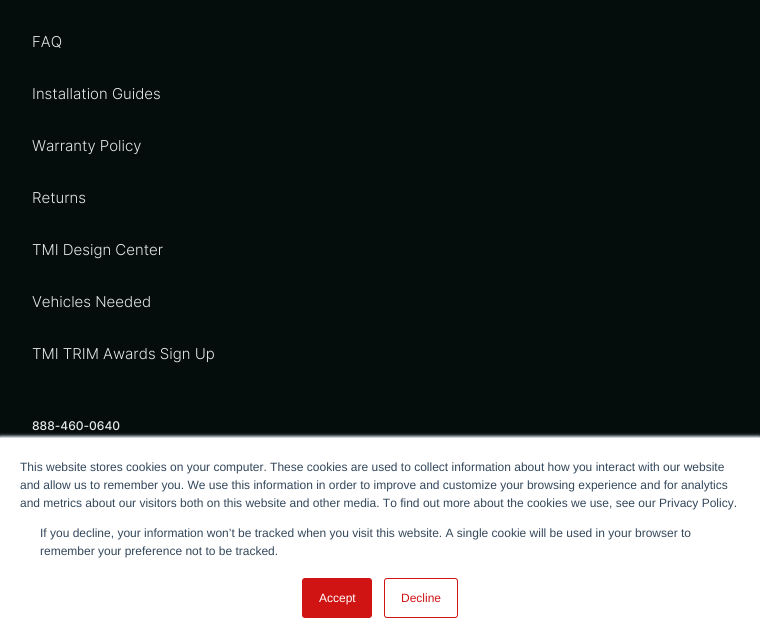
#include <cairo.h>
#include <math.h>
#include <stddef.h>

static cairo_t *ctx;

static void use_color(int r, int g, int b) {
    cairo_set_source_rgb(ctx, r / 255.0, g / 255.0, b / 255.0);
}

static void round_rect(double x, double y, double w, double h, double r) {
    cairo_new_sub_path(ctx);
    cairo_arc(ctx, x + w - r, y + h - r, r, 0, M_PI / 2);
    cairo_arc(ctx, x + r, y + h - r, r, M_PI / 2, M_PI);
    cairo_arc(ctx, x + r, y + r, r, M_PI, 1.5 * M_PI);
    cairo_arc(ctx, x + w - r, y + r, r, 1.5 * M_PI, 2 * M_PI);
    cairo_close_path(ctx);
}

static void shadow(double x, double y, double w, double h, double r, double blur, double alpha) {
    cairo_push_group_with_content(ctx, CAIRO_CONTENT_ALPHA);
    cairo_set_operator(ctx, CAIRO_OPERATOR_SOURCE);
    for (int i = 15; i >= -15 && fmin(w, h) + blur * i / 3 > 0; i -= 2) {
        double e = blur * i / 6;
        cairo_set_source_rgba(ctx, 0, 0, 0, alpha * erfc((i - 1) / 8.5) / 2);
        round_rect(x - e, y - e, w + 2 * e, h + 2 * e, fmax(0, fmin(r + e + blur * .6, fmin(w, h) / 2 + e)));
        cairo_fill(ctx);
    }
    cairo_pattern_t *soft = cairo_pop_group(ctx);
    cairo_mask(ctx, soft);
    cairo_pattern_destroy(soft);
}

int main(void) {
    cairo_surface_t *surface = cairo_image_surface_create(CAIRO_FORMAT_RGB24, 760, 644);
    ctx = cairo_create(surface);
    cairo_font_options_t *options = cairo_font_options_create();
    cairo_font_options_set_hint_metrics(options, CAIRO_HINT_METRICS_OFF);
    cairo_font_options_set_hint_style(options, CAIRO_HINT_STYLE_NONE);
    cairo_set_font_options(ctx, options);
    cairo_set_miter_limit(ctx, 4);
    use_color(4, 12, 12);
    cairo_paint(ctx);
    cairo_select_font_face(ctx, "Inter Light", CAIRO_FONT_SLANT_NORMAL, CAIRO_FONT_WEIGHT_NORMAL);
    cairo_set_font_size(ctx, 15);
    use_color(230, 231, 231);
    cairo_move_to(ctx, 32, 47);
    cairo_show_text(ctx, "FAQ");
    cairo_move_to(ctx, 32, 99);
    cairo_show_text(ctx, "Installation Guides");
    cairo_move_to(ctx, 32, 151);
    cairo_show_text(ctx, "Warranty Policy");
    cairo_move_to(ctx, 32, 203);
    cairo_show_text(ctx, "Returns");
    cairo_move_to(ctx, 32, 255);
    cairo_show_text(ctx, "TMI Design Center");
    cairo_move_to(ctx, 32, 307);
    cairo_show_text(ctx, "Vehicles Needed");
    cairo_move_to(ctx, 32, 359);
    cairo_show_text(ctx, "TMI TRIM Awards Sign Up");
    cairo_select_font_face(ctx, "Inter Medium", CAIRO_FONT_SLANT_NORMAL, CAIRO_FONT_WEIGHT_NORMAL);
    cairo_set_font_size(ctx, 12);
    cairo_move_to(ctx, 32, 430);
    cairo_show_text(ctx, "888-460-0640");
    use_color(234, 240, 246);
    shadow(0, 436, 760, 207, 0, 1.5, 1);
    use_color(255, 255, 255);
    cairo_rectangle(ctx, 0, 438, 760, 206);
    cairo_fill(ctx);
    use_color(203, 214, 226);
    cairo_rectangle(ctx, 0, 437, 760, 1);
    cairo_fill(ctx);
    cairo_select_font_face(ctx, "Liberation Sans", CAIRO_FONT_SLANT_NORMAL, CAIRO_FONT_WEIGHT_NORMAL);
    use_color(51, 71, 91);
    cairo_move_to(ctx, 20, 471);
    cairo_show_text(ctx, "This website stores cookies on your computer. These cookies are used to collect information about how you interact with our website");
    cairo_move_to(ctx, 20, 489);
    cairo_show_text(ctx, "and allow us to remember you. We use this information in order to improve and customize your browsing experience and for analytics");
    cairo_move_to(ctx, 20, 507);
    cairo_show_text(ctx, "and metrics about our visitors both on this website and other media. To find out more about the cookies we use, see our Privacy Policy.");
    cairo_move_to(ctx, 40, 537);
    cairo_show_text(ctx, "If you decline, your information won’t be tracked when you visit this website. A single cookie will be used in your browser to");
    cairo_move_to(ctx, 40, 555);
    cairo_show_text(ctx, "remember your preference not to be tracked.");
    use_color(208, 20, 20);
    round_rect(302.5, 578.5, 69, 39, 2.5);
    cairo_fill_preserve(ctx);
    cairo_set_line_width(ctx, 1);
    cairo_stroke(ctx);
    use_color(255, 255, 255);
    cairo_move_to(ctx, 319, 602);
    cairo_show_text(ctx, "Accept");
    round_rect(384.5, 578.5, 73, 39, 2.5);
    use_color(208, 20, 20);
    cairo_stroke(ctx);
    cairo_move_to(ctx, 401, 602);
    cairo_show_text(ctx, "Decline");
    cairo_surface_write_to_png(surface, "result.png");
    cairo_font_options_destroy(options);
    cairo_destroy(ctx);
    cairo_surface_destroy(surface);
    return 0;
}
